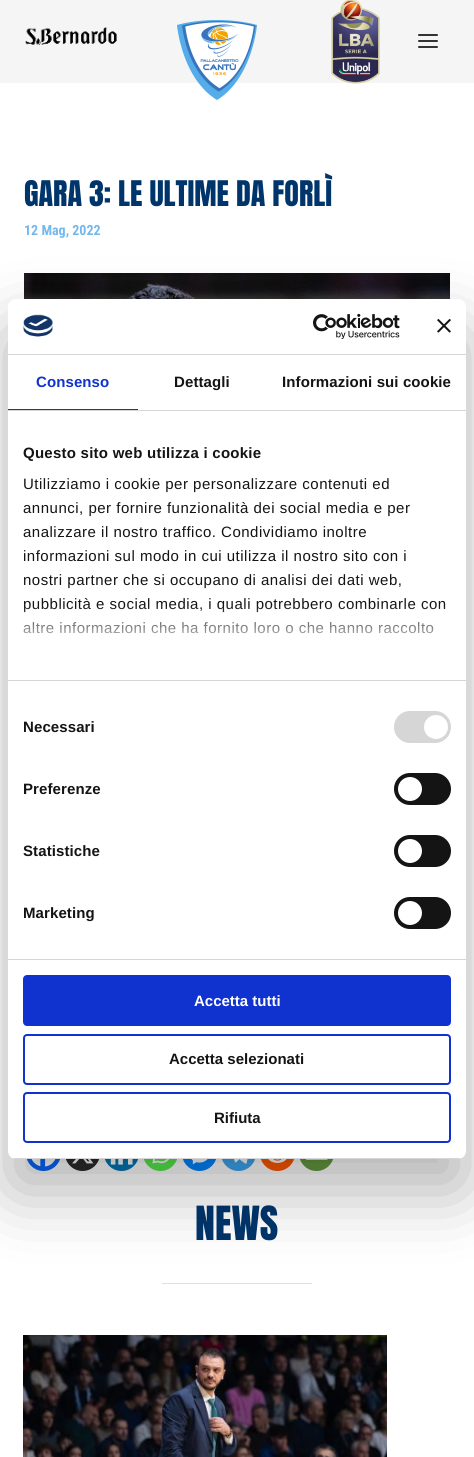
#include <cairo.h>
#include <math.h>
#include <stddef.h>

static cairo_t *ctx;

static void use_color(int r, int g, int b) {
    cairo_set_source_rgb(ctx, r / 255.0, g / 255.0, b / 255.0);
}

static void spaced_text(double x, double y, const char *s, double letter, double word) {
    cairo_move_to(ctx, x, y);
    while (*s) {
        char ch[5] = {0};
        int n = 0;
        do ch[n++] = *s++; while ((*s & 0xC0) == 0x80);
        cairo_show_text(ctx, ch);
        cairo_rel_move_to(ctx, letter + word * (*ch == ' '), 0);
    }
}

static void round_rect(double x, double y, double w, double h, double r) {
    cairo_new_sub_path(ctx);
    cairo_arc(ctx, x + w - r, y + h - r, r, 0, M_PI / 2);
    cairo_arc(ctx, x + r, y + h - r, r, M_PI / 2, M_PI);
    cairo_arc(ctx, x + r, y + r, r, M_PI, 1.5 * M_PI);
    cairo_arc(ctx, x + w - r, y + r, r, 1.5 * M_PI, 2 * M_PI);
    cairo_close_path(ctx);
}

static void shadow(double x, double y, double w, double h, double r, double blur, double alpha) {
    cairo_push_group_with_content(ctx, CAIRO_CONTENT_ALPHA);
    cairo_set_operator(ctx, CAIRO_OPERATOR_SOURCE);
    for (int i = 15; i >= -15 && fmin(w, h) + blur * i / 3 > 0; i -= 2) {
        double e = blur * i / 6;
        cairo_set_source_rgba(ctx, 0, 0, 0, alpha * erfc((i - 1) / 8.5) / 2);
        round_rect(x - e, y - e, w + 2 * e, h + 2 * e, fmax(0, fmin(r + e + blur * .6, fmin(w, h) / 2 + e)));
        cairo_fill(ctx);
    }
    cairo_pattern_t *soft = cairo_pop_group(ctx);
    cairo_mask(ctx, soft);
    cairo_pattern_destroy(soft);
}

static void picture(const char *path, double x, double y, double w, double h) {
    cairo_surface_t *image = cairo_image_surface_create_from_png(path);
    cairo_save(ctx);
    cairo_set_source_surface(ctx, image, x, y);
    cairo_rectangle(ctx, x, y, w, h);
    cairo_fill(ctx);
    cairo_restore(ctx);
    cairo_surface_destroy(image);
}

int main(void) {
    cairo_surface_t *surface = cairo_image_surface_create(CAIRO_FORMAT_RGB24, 474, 1457);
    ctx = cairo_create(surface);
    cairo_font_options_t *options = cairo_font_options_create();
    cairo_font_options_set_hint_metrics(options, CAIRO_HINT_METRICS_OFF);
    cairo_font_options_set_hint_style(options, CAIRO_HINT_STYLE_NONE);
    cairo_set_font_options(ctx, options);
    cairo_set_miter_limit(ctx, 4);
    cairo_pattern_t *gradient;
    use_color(255, 255, 255);
    cairo_paint(ctx);
    use_color(245, 245, 245);
    cairo_rectangle(ctx, 0, 0, 474, 83);
    cairo_fill(ctx);
    picture("img1.png", 25, 27, 92, 18);
    picture("img2.png", 177, 20, 80, 80);
    picture("img3.png", 331, 0, 49, 84);
    picture("img4.png", 418, 34, 20, 14);
    cairo_select_font_face(ctx, "Anton", CAIRO_FONT_SLANT_NORMAL, CAIRO_FONT_WEIGHT_NORMAL);
    cairo_set_font_size(ctx, 30);
    use_color(0, 53, 108);
    cairo_move_to(ctx, 24, 206);
    cairo_show_text(ctx, "GARA 3: LE ULTIME DA FORLÌ");
    cairo_select_font_face(ctx, "Roboto Condensed", CAIRO_FONT_SLANT_NORMAL, CAIRO_FONT_WEIGHT_BOLD);
    cairo_set_font_size(ctx, 14);
    use_color(116, 185, 236);
    cairo_move_to(ctx, 24, 235);
    cairo_show_text(ctx, "12 Mag, 2022");
    picture("img5.png", 24, 273, 426, 26);
    use_color(7, 101, 254);
    cairo_arc(ctx, 43.5, 1153.5, 17.5, 0, 2 * M_PI);
    cairo_fill(ctx);
    picture("img6.png", 31, 1159, 25, 8);
    use_color(42, 42, 42);
    cairo_arc(ctx, 82.5, 1153.5, 17.5, 0, 2 * M_PI);
    cairo_fill(ctx);
    picture("img7.png", 72, 1159, 22, 5);
    use_color(0, 119, 181);
    cairo_arc(ctx, 121.5, 1153.5, 17.5, 0, 2 * M_PI);
    cairo_fill(ctx);
    picture("img8.png", 110, 1159, 23, 6);
    use_color(85, 235, 76);
    cairo_arc(ctx, 160.5, 1153.5, 17.5, 0, 2 * M_PI);
    cairo_fill(ctx);
    picture("img9.png", 152, 1159, 18, 5);
    use_color(0, 132, 255);
    cairo_arc(ctx, 199.5, 1153.5, 17.5, 0, 2 * M_PI);
    cairo_fill(ctx);
    picture("img10.png", 191, 1159, 17, 6);
    use_color(61, 165, 241);
    cairo_arc(ctx, 238.5, 1153.5, 17.5, 0, 2 * M_PI);
    cairo_fill(ctx);
    picture("img11.png", 234, 1159, 14, 5);
    use_color(255, 87, 0);
    cairo_arc(ctx, 277.5, 1153.5, 17.5, 0, 2 * M_PI);
    cairo_fill(ctx);
    picture("img12.png", 268, 1159, 19, 4);
    use_color(100, 154, 63);
    cairo_arc(ctx, 316.5, 1153.5, 17.5, 0, 2 * M_PI);
    cairo_fill(ctx);
    picture("img13.png", 306, 1159, 22, 1);
    cairo_select_font_face(ctx, "Anton", CAIRO_FONT_SLANT_NORMAL, CAIRO_FONT_WEIGHT_NORMAL);
    cairo_set_font_size(ctx, 40);
    use_color(0, 53, 108);
    cairo_move_to(ctx, 195, 1240);
    cairo_show_text(ctx, "NEWS");
    use_color(225, 225, 225);
    cairo_rectangle(ctx, 162, 1283, 150, 1);
    cairo_fill(ctx);
    picture("img14.png", 23, 1335, 364, 122);
    use_color(0, 0, 0);
    shadow(8, 331, 458, 860, 8, 34, 0.3);
    use_color(255, 255, 255);
    round_rect(8, 299, 458, 860, 8);
    cairo_fill(ctx);
    use_color(214, 214, 214);
    cairo_rectangle(ctx, 8, 354, 458, 1);
    cairo_fill(ctx);
    picture("img15.png", 23, 314, 30, 23);
    picture("img16.png", 313, 314, 87, 25);
    picture("img17.png", 437, 319, 14, 14);
    cairo_rectangle(ctx, 8, 410, 458, 1);
    cairo_fill(ctx);
    use_color(16, 50, 207);
    cairo_rectangle(ctx, 8, 409, 130, 1);
    cairo_fill(ctx);
    cairo_select_font_face(ctx, "Liberation Sans", CAIRO_FONT_SLANT_NORMAL, CAIRO_FONT_WEIGHT_BOLD);
    cairo_set_font_size(ctx, 15);
    spaced_text(36, 387, "Consenso", 0.1, 0);
    use_color(20, 20, 20);
    spaced_text(174, 387, "Dettagli", 0.1, 0);
    spaced_text(282, 387, "Informazioni sui cookie", 0.1, 0);
    use_color(214, 214, 214);
    cairo_rectangle(ctx, 8, 680, 458, 1);
    cairo_fill(ctx);
    use_color(20, 20, 20);
    spaced_text(23, 458, "Questo sito web utilizza i cookie", 0.25, 0);
    cairo_select_font_face(ctx, "Liberation Sans", CAIRO_FONT_SLANT_NORMAL, CAIRO_FONT_WEIGHT_NORMAL);
    spaced_text(23, 489, "Utilizziamo i cookie per personalizzare contenuti ed", 0.5, 0);
    spaced_text(23, 513, "annunci, per fornire funzionalità dei social media e per", 0.5, 0);
    spaced_text(23, 537, "analizzare il nostro traffico. Condividiamo inoltre", 0.5, 0);
    spaced_text(23, 561, "informazioni sul modo in cui utilizza il nostro sito con i", 0.5, 0);
    spaced_text(23, 585, "nostri partner che si occupano di analisi dei dati web,", 0.5, 0);
    spaced_text(23, 609, "pubblicità e social media, i quali potrebbero combinarle con", 0.5, 0);
    spaced_text(23, 633, "altre informazioni che ha fornito loro o che hanno raccolto", 0.5, 0);
    gradient = cairo_pattern_create_linear(231, 680, 231, 605);
    cairo_pattern_add_color_stop_rgba(gradient, 0, 1, 1, 1, 1);
    cairo_pattern_add_color_stop_rgba(gradient, 0.5, 1, 1, 1, 0.8);
    cairo_pattern_add_color_stop_rgba(gradient, 1, 1, 1, 1, 0);
    cairo_set_source(ctx, gradient);
    cairo_pattern_destroy(gradient);
    cairo_rectangle(ctx, 23, 606, 422, 28);
    cairo_fill(ctx);
    use_color(214, 214, 214);
    cairo_rectangle(ctx, 8, 959, 458, 1);
    cairo_fill(ctx);
    cairo_select_font_face(ctx, "Liberation Sans", CAIRO_FONT_SLANT_NORMAL, CAIRO_FONT_WEIGHT_BOLD);
    use_color(20, 20, 20);
    spaced_text(23, 732, "Necessari", 0.1, 0);
    use_color(214, 214, 214);
    round_rect(394, 711, 57, 32, 16);
    cairo_fill(ctx);
    use_color(255, 255, 255);
    cairo_arc(ctx, 436, 727, 12, 0, 2 * M_PI);
    cairo_fill(ctx);
    use_color(20, 20, 20);
    spaced_text(23, 794, "Preferenze", 0.1, 0);
    round_rect(394, 773, 57, 32, 16);
    cairo_fill(ctx);
    use_color(255, 255, 255);
    cairo_arc(ctx, 410, 789, 12, 0, 2 * M_PI);
    cairo_fill(ctx);
    use_color(20, 20, 20);
    spaced_text(23, 856, "Statistiche", 0.1, 0);
    round_rect(394, 835, 57, 32, 16);
    cairo_fill(ctx);
    use_color(255, 255, 255);
    cairo_arc(ctx, 410, 851, 12, 0, 2 * M_PI);
    cairo_fill(ctx);
    use_color(20, 20, 20);
    spaced_text(23, 918, "Marketing", 0.1, 0);
    round_rect(394, 897, 57, 32, 16);
    cairo_fill(ctx);
    use_color(255, 255, 255);
    cairo_arc(ctx, 410, 913, 12, 0, 2 * M_PI);
    cairo_fill(ctx);
    cairo_save(ctx);
    round_rect(8, 299, 458, 860, 8);
    cairo_clip(ctx);
    use_color(214, 214, 214);
    cairo_rectangle(ctx, 8, 1158, 458, 1);
    cairo_fill(ctx);
    cairo_restore(ctx);
    use_color(16, 50, 207);
    round_rect(24, 976, 426, 49, 3);
    cairo_fill_preserve(ctx);
    cairo_stroke(ctx);
    use_color(255, 255, 255);
    cairo_move_to(ctx, 194, 1006);
    cairo_show_text(ctx, "Accetta tutti");
    round_rect(24, 1035, 426, 49, 3);
    use_color(16, 50, 207);
    cairo_stroke(ctx);
    use_color(20, 20, 20);
    cairo_move_to(ctx, 169, 1064);
    cairo_show_text(ctx, "Accetta selezionati");
    round_rect(24, 1093, 426, 49, 3);
    use_color(16, 50, 207);
    cairo_stroke(ctx);
    use_color(20, 20, 20);
    cairo_move_to(ctx, 214, 1123);
    cairo_show_text(ctx, "Rifiuta");
    cairo_surface_write_to_png(surface, "result.png");
    cairo_font_options_destroy(options);
    cairo_destroy(ctx);
    cairo_surface_destroy(surface);
    return 0;
}
